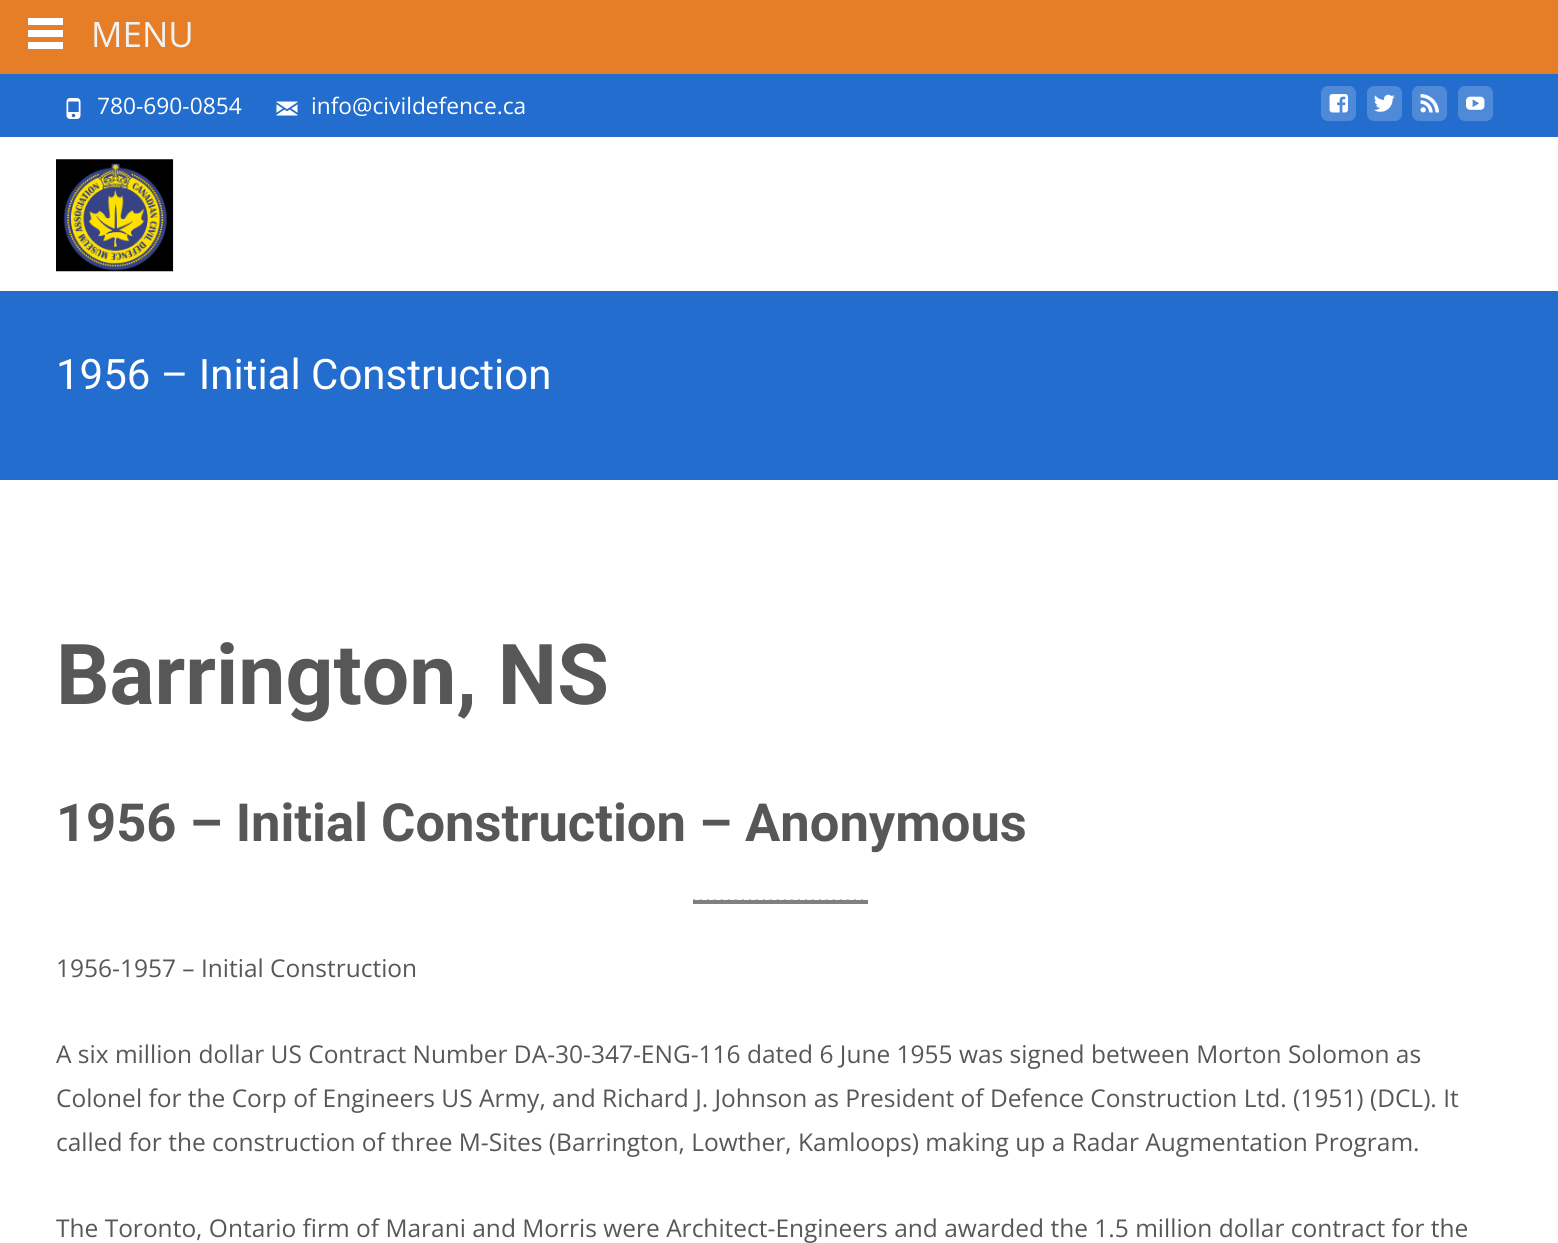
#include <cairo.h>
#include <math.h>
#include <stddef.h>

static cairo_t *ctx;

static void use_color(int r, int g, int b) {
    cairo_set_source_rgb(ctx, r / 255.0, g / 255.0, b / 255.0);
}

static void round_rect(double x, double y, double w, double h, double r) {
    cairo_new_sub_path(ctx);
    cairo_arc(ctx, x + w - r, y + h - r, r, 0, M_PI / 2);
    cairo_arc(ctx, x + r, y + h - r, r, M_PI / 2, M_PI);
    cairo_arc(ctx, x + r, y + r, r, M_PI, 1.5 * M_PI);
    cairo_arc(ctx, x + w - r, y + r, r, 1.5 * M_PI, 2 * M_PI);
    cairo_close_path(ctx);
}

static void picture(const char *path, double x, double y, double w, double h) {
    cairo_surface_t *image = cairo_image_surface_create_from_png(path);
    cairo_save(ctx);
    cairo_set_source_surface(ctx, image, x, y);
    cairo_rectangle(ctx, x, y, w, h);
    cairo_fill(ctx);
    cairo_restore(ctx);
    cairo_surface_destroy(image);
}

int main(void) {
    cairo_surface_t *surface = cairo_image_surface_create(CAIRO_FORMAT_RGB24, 1558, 1243);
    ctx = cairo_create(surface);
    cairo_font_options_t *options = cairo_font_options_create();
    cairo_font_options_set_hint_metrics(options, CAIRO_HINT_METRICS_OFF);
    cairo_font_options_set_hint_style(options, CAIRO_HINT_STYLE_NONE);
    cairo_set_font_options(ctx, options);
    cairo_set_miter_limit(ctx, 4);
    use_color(255, 255, 255);
    cairo_paint(ctx);
    use_color(229, 126, 38);
    cairo_rectangle(ctx, 0, 0, 1558, 74);
    cairo_fill(ctx);
    use_color(255, 255, 255);
    cairo_rectangle(ctx, 28, 18, 35, 7);
    cairo_fill(ctx);
    cairo_rectangle(ctx, 28, 30, 35, 7);
    cairo_fill(ctx);
    cairo_rectangle(ctx, 28, 42, 35, 7);
    cairo_fill(ctx);
    cairo_select_font_face(ctx, "Open Sans", CAIRO_FONT_SLANT_NORMAL, CAIRO_FONT_WEIGHT_NORMAL);
    cairo_set_font_size(ctx, 35);
    use_color(242, 242, 242);
    cairo_move_to(ctx, 91, 47);
    cairo_show_text(ctx, "MENU");
    use_color(35, 109, 206);
    cairo_rectangle(ctx, 0, 74, 1558, 63);
    cairo_fill(ctx);
    picture("img1.png", 66, 98, 15, 21);
    cairo_set_font_size(ctx, 22.75);
    use_color(255, 255, 255);
    cairo_move_to(ctx, 97, 114);
    cairo_show_text(ctx, "780-690-0854");
    picture("img2.png", 276, 101, 22, 15);
    cairo_move_to(ctx, 311, 114);
    cairo_show_text(ctx, "info@civildefence.ca");
    use_color(79, 138, 216);
    round_rect(1321, 86, 35, 35, 7);
    cairo_fill(ctx);
    picture("img3.png", 1329, 94, 19, 19);
    round_rect(1367, 86, 35, 35, 7);
    cairo_fill(ctx);
    picture("img4.png", 1374, 94, 21, 18);
    round_rect(1412, 86, 35, 35, 7);
    cairo_fill(ctx);
    picture("img5.png", 1420, 94, 19, 19);
    round_rect(1458, 86, 35, 35, 7);
    cairo_fill(ctx);
    picture("img6.png", 1466, 96, 19, 14);
    picture("img7.png", 56, 159, 118, 113);
    use_color(35, 109, 206);
    cairo_rectangle(ctx, 0, 291, 1558, 189);
    cairo_fill(ctx);
    cairo_select_font_face(ctx, "Roboto", CAIRO_FONT_SLANT_NORMAL, CAIRO_FONT_WEIGHT_NORMAL);
    cairo_set_font_size(ctx, 42);
    use_color(255, 255, 255);
    cairo_move_to(ctx, 56, 389);
    cairo_show_text(ctx, "1956 – Initial Construction");
    cairo_select_font_face(ctx, "Roboto", CAIRO_FONT_SLANT_NORMAL, CAIRO_FONT_WEIGHT_BOLD);
    cairo_set_font_size(ctx, 84);
    use_color(87, 87, 87);
    cairo_move_to(ctx, 56, 704);
    cairo_show_text(ctx, "Barrington, NS");
    cairo_set_font_size(ctx, 52.5);
    cairo_move_to(ctx, 56, 841);
    cairo_show_text(ctx, "1956 – Initial Construction – Anonymous");
    picture("img8.png", 693, 899, 175, 1);
    use_color(128, 128, 128);
    cairo_rectangle(ctx, 693, 900, 175, 4);
    cairo_fill(ctx);
    cairo_select_font_face(ctx, "Open Sans", CAIRO_FONT_SLANT_NORMAL, CAIRO_FONT_WEIGHT_NORMAL);
    cairo_set_font_size(ctx, 24.5);
    use_color(87, 87, 87);
    cairo_move_to(ctx, 56, 977);
    cairo_show_text(ctx, "1956-1957 – Initial Construction");
    cairo_move_to(ctx, 56, 1063);
    cairo_show_text(ctx, "A six million dollar US Contract Number DA-30-347-ENG-116 dated 6 June 1955 was signed between Morton Solomon as");
    cairo_move_to(ctx, 56, 1107);
    cairo_show_text(ctx, "Colonel for the Corp of Engineers US Army, and Richard J. Johnson as President of Defence Construction Ltd. (1951) (DCL). It");
    cairo_move_to(ctx, 56, 1151);
    cairo_show_text(ctx, "called for the construction of three M-Sites (Barrington, Lowther, Kamloops) making up a Radar Augmentation Program.");
    cairo_move_to(ctx, 56, 1237);
    cairo_show_text(ctx, "The Toronto, Ontario firm of Marani and Morris were Architect-Engineers and awarded the 1.5 million dollar contract for the");
    cairo_surface_write_to_png(surface, "result.png");
    cairo_font_options_destroy(options);
    cairo_destroy(ctx);
    cairo_surface_destroy(surface);
    return 0;
}
